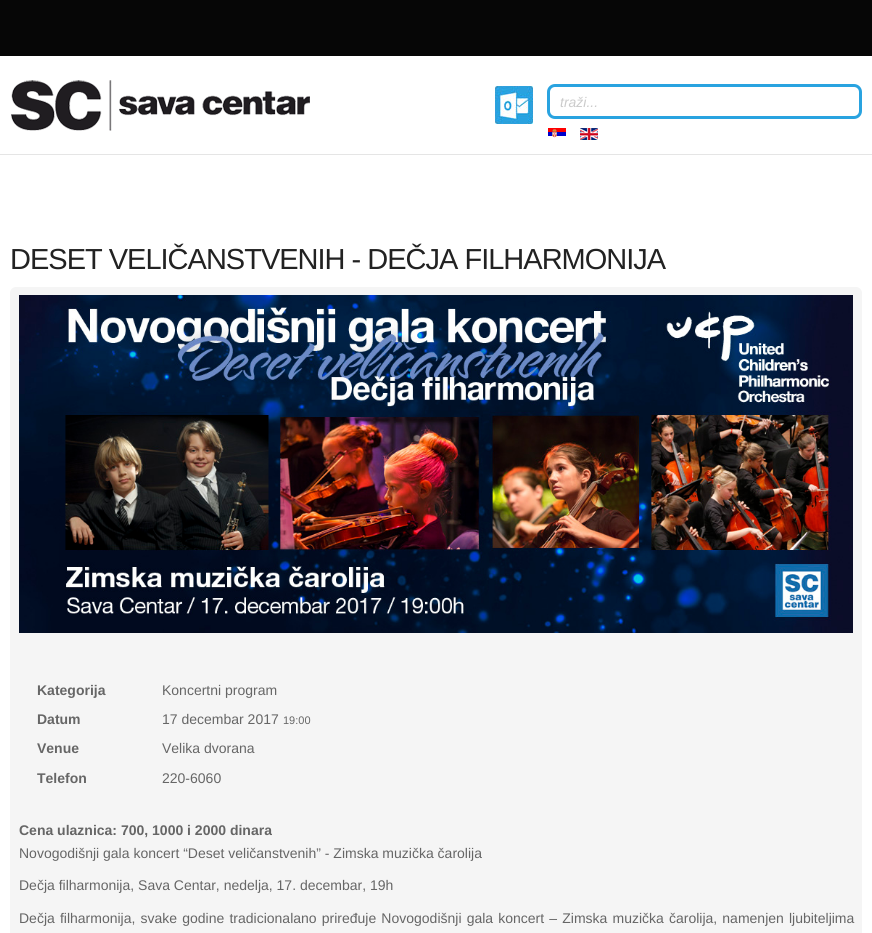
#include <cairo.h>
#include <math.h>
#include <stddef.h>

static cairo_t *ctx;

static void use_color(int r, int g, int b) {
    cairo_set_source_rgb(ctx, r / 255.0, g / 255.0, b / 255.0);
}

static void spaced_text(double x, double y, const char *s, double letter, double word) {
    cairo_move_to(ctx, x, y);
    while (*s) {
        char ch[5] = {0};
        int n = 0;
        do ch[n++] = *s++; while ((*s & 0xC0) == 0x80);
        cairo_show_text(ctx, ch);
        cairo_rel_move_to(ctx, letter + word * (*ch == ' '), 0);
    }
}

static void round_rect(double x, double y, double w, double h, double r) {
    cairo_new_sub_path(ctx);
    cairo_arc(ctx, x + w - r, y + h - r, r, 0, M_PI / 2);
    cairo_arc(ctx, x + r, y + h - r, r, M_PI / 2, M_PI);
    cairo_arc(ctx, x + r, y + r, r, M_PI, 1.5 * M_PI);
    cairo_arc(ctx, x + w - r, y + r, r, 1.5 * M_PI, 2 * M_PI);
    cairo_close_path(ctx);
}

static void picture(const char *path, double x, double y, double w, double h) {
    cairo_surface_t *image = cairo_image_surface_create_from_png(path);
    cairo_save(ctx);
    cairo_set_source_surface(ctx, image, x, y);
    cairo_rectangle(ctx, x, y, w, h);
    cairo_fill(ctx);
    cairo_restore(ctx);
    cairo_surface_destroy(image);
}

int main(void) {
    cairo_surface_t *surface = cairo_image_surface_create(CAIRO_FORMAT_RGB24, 872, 933);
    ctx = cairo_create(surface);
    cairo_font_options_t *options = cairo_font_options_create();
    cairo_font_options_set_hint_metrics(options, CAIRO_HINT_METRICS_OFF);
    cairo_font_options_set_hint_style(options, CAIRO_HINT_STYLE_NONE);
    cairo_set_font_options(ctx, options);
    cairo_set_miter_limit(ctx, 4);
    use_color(255, 255, 255);
    cairo_paint(ctx);
    use_color(6, 6, 6);
    cairo_rectangle(ctx, 0, 0, 872, 56);
    cairo_fill(ctx);
    use_color(229, 229, 229);
    cairo_rectangle(ctx, 0, 154, 872, 1);
    cairo_fill(ctx);
    picture("img1.png", 11, 80, 299, 51);
    picture("img2.png", 495, 86, 38, 38);
    round_rect(548.5, 85.5, 312, 32, 6.5);
    use_color(41, 163, 224);
    cairo_set_line_width(ctx, 3);
    cairo_stroke(ctx);
    cairo_select_font_face(ctx, "Liberation Sans", CAIRO_FONT_SLANT_ITALIC, CAIRO_FONT_WEIGHT_NORMAL);
    cairo_set_font_size(ctx, 14);
    use_color(203, 203, 203);
    cairo_move_to(ctx, 560, 107);
    cairo_show_text(ctx, "traži...");
    picture("img3.png", 548, 128, 18, 10);
    picture("img4.png", 580, 128, 18, 12);
    cairo_select_font_face(ctx, "Liberation Sans", CAIRO_FONT_SLANT_NORMAL, CAIRO_FONT_WEIGHT_NORMAL);
    cairo_set_font_size(ctx, 29);
    use_color(34, 34, 34);
    spaced_text(10, 269, "DESET VELIČANSTVENIH - DEČJA FILHARMONIJA", -1, 0);
    use_color(245, 245, 245);
    round_rect(10, 287, 852, 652, 6);
    cairo_fill(ctx);
    picture("img5.png", 19, 295, 834, 338);
    cairo_select_font_face(ctx, "Liberation Sans", CAIRO_FONT_SLANT_NORMAL, CAIRO_FONT_WEIGHT_BOLD);
    cairo_set_font_size(ctx, 14);
    use_color(102, 102, 102);
    cairo_move_to(ctx, 37, 695);
    cairo_show_text(ctx, "Kategorija");
    cairo_select_font_face(ctx, "Liberation Sans", CAIRO_FONT_SLANT_NORMAL, CAIRO_FONT_WEIGHT_NORMAL);
    cairo_move_to(ctx, 162, 695);
    cairo_show_text(ctx, "Koncertni program");
    cairo_select_font_face(ctx, "Liberation Sans", CAIRO_FONT_SLANT_NORMAL, CAIRO_FONT_WEIGHT_BOLD);
    cairo_move_to(ctx, 37, 724);
    cairo_show_text(ctx, "Datum");
    cairo_select_font_face(ctx, "Liberation Sans", CAIRO_FONT_SLANT_NORMAL, CAIRO_FONT_WEIGHT_NORMAL);
    cairo_move_to(ctx, 162, 724);
    cairo_show_text(ctx, "17 decembar 2017");
    cairo_set_font_size(ctx, 11);
    cairo_move_to(ctx, 283, 724);
    cairo_show_text(ctx, "19:00");
    cairo_select_font_face(ctx, "Liberation Sans", CAIRO_FONT_SLANT_NORMAL, CAIRO_FONT_WEIGHT_BOLD);
    cairo_set_font_size(ctx, 14);
    cairo_move_to(ctx, 37, 753);
    cairo_show_text(ctx, "Venue");
    cairo_select_font_face(ctx, "Liberation Sans", CAIRO_FONT_SLANT_NORMAL, CAIRO_FONT_WEIGHT_NORMAL);
    cairo_move_to(ctx, 162, 753);
    cairo_show_text(ctx, "Velika dvorana");
    cairo_select_font_face(ctx, "Liberation Sans", CAIRO_FONT_SLANT_NORMAL, CAIRO_FONT_WEIGHT_BOLD);
    cairo_move_to(ctx, 37, 783);
    cairo_show_text(ctx, "Telefon");
    cairo_select_font_face(ctx, "Liberation Sans", CAIRO_FONT_SLANT_NORMAL, CAIRO_FONT_WEIGHT_NORMAL);
    cairo_move_to(ctx, 162, 783);
    cairo_show_text(ctx, "220-6060");
    cairo_select_font_face(ctx, "Liberation Sans", CAIRO_FONT_SLANT_NORMAL, CAIRO_FONT_WEIGHT_BOLD);
    cairo_move_to(ctx, 19, 835);
    cairo_show_text(ctx, "Cena ulaznica: 700, 1000 i 2000 dinara");
    cairo_select_font_face(ctx, "Liberation Sans", CAIRO_FONT_SLANT_NORMAL, CAIRO_FONT_WEIGHT_NORMAL);
    cairo_move_to(ctx, 19, 858);
    cairo_show_text(ctx, "Novogodišnji gala koncert “Deset veličanstvenih” - Zimska muzička čarolija");
    cairo_move_to(ctx, 19, 890);
    cairo_show_text(ctx, "Dečja filharmonija, Sava Centar, nedelјa, 17. decembar, 19h");
    spaced_text(19, 923, "Dečja filharmonija, svake godine tradicionalano priređuje Novogodišnji gala koncert – Zimska muzička čarolija, namenjen lјubitelјima", 0, 1.25);
    cairo_surface_write_to_png(surface, "result.png");
    cairo_font_options_destroy(options);
    cairo_destroy(ctx);
    cairo_surface_destroy(surface);
    return 0;
}
